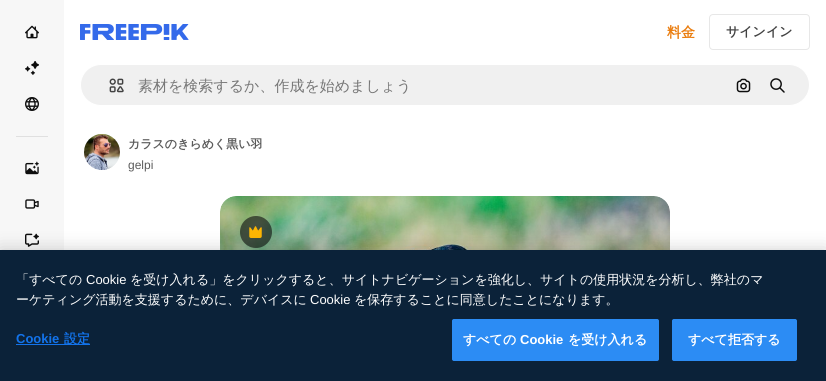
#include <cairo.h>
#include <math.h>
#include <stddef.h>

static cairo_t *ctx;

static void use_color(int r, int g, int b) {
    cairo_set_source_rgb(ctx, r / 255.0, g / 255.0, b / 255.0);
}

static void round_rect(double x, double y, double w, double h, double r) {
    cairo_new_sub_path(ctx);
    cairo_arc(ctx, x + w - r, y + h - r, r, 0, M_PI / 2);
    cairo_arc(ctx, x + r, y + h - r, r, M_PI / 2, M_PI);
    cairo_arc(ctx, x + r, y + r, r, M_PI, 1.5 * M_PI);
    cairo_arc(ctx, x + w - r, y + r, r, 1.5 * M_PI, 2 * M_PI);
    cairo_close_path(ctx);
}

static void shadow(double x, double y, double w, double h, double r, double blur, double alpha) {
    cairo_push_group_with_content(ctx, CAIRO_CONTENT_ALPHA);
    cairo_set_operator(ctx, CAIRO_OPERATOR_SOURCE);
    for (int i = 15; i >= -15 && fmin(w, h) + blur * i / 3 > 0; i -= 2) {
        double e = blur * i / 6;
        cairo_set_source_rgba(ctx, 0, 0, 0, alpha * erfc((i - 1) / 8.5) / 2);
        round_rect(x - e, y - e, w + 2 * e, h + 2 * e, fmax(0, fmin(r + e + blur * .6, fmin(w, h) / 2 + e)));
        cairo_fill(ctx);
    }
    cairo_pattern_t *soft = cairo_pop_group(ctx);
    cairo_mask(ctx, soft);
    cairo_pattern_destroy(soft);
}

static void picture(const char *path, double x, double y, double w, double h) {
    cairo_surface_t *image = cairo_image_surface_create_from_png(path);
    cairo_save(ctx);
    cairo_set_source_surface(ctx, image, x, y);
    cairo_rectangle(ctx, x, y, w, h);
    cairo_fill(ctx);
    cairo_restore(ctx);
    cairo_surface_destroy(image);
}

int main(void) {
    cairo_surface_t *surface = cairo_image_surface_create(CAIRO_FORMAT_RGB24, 826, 381);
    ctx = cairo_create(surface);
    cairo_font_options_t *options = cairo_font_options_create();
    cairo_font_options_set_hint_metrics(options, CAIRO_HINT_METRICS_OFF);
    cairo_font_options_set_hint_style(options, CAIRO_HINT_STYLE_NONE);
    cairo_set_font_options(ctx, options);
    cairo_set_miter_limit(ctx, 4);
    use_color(255, 255, 255);
    cairo_paint(ctx);
    use_color(247, 247, 247);
    cairo_rectangle(ctx, 0, 0, 64, 250);
    cairo_fill(ctx);
    picture("img1.png", 25, 25, 14, 14);
    picture("img2.png", 25, 61, 14, 14);
    picture("img3.png", 25, 97, 14, 14);
    use_color(224, 224, 224);
    cairo_rectangle(ctx, 16, 136, 32, 1);
    cairo_fill(ctx);
    picture("img4.png", 25, 161, 14, 14);
    picture("img5.png", 25, 199, 14, 10);
    picture("img6.png", 25, 233, 14, 14);
    picture("img7.png", 80, 24, 109, 16);
    cairo_select_font_face(ctx, "WenQuanYi Zen Hei", CAIRO_FONT_SLANT_NORMAL, CAIRO_FONT_WEIGHT_BOLD);
    cairo_set_font_size(ctx, 14);
    use_color(234, 126, 17);
    cairo_move_to(ctx, 667, 37);
    cairo_show_text(ctx, "料金");
    round_rect(709.5, 14.5, 100, 35, 3.5);
    use_color(231, 231, 231);
    cairo_set_line_width(ctx, 1);
    cairo_stroke(ctx);
    cairo_set_font_size(ctx, 13);
    use_color(66, 66, 66);
    cairo_move_to(ctx, 726, 36);
    cairo_show_text(ctx, "サインイン");
    use_color(240, 240, 240);
    round_rect(80.5, 64.5, 729, 41, 20.5);
    cairo_fill_preserve(ctx);
    use_color(255, 255, 255);
    cairo_stroke(ctx);
    picture("img8.png", 109, 78, 15, 15);
    cairo_select_font_face(ctx, "WenQuanYi Zen Hei Medium", CAIRO_FONT_SLANT_NORMAL, CAIRO_FONT_WEIGHT_NORMAL);
    cairo_set_font_size(ctx, 15);
    use_color(119, 119, 119);
    cairo_move_to(ctx, 138, 91);
    cairo_show_text(ctx, "素材を検索するか、作成を始めましょう");
    picture("img9.png", 736, 78, 15, 15);
    picture("img10.png", 770, 78, 15, 15);
    picture("img11.png", 84, 134, 36, 36);
    cairo_select_font_face(ctx, "WenQuanYi Zen Hei", CAIRO_FONT_SLANT_NORMAL, CAIRO_FONT_WEIGHT_BOLD);
    cairo_set_font_size(ctx, 12);
    use_color(92, 92, 92);
    cairo_move_to(ctx, 128, 148);
    cairo_show_text(ctx, "カラスのきらめく黒い羽");
    cairo_select_font_face(ctx, "Liberation Sans", CAIRO_FONT_SLANT_NORMAL, CAIRO_FONT_WEIGHT_NORMAL);
    cairo_move_to(ctx, 128, 169);
    cairo_show_text(ctx, "gelpi");
    picture("img12.png", 220, 196, 450, 54);
    cairo_set_source_rgba(ctx, 0.051, 0.051, 0.051, 0.6);
    cairo_arc(ctx, 256, 232, 16, 0, 2 * M_PI);
    cairo_fill(ctx);
    picture("img13.png", 249, 226, 13, 12);
    use_color(0, 0, 0);
    shadow(0, 250, 826, 131, 0, 9, 0.2);
    use_color(11, 34, 57);
    cairo_rectangle(ctx, 0, 250, 826, 131);
    cairo_fill(ctx);
    cairo_select_font_face(ctx, "WenQuanYi Zen Hei Medium", CAIRO_FONT_SLANT_NORMAL, CAIRO_FONT_WEIGHT_NORMAL);
    cairo_set_font_size(ctx, 13);
    use_color(255, 255, 255);
    cairo_move_to(ctx, 16, 284);
    cairo_show_text(ctx, "「すべての");
    cairo_select_font_face(ctx, "Liberation Sans", CAIRO_FONT_SLANT_NORMAL, CAIRO_FONT_WEIGHT_NORMAL);
    cairo_move_to(ctx, 86, 284);
    cairo_show_text(ctx, "Cookie");
    cairo_select_font_face(ctx, "WenQuanYi Zen Hei Medium", CAIRO_FONT_SLANT_NORMAL, CAIRO_FONT_WEIGHT_NORMAL);
    cairo_move_to(ctx, 130, 284);
    cairo_show_text(ctx, "を受け入れる」をクリックすると、サイトナビゲーションを強化し、サイトの使用状況を分析し、弊社のマ");
    cairo_move_to(ctx, 16, 304);
    cairo_show_text(ctx, "ーケティング活動を支援するために、デバイスに");
    cairo_select_font_face(ctx, "Liberation Sans", CAIRO_FONT_SLANT_NORMAL, CAIRO_FONT_WEIGHT_NORMAL);
    cairo_move_to(ctx, 310, 304);
    cairo_show_text(ctx, "Cookie");
    cairo_select_font_face(ctx, "WenQuanYi Zen Hei Medium", CAIRO_FONT_SLANT_NORMAL, CAIRO_FONT_WEIGHT_NORMAL);
    cairo_move_to(ctx, 354, 304);
    cairo_show_text(ctx, "を保存することに同意したことになります。");
    cairo_select_font_face(ctx, "Liberation Sans", CAIRO_FONT_SLANT_NORMAL, CAIRO_FONT_WEIGHT_BOLD);
    use_color(18, 115, 235);
    cairo_move_to(ctx, 16, 343);
    cairo_show_text(ctx, "Cookie");
    cairo_rectangle(ctx, 16, 344, 74, 1);
    cairo_fill(ctx);
    cairo_select_font_face(ctx, "WenQuanYi Zen Hei", CAIRO_FONT_SLANT_NORMAL, CAIRO_FONT_WEIGHT_BOLD);
    cairo_move_to(ctx, 64, 343);
    cairo_show_text(ctx, "設定");
    use_color(44, 140, 244);
    round_rect(452.5, 319.5, 206, 41, 1.5);
    cairo_fill_preserve(ctx);
    cairo_stroke(ctx);
    use_color(255, 255, 255);
    cairo_move_to(ctx, 463, 344);
    cairo_show_text(ctx, "すべての");
    cairo_select_font_face(ctx, "Liberation Sans", CAIRO_FONT_SLANT_NORMAL, CAIRO_FONT_WEIGHT_BOLD);
    cairo_move_to(ctx, 520, 344);
    cairo_show_text(ctx, "Cookie");
    cairo_select_font_face(ctx, "WenQuanYi Zen Hei", CAIRO_FONT_SLANT_NORMAL, CAIRO_FONT_WEIGHT_BOLD);
    cairo_move_to(ctx, 568, 344);
    cairo_show_text(ctx, "を受け入れる");
    use_color(44, 140, 244);
    round_rect(672.5, 319.5, 124, 41, 1.5);
    cairo_fill_preserve(ctx);
    cairo_stroke(ctx);
    use_color(255, 255, 255);
    cairo_move_to(ctx, 688, 344);
    cairo_show_text(ctx, "すべて拒否する");
    cairo_surface_write_to_png(surface, "result.png");
    cairo_font_options_destroy(options);
    cairo_destroy(ctx);
    cairo_surface_destroy(surface);
    return 0;
}
